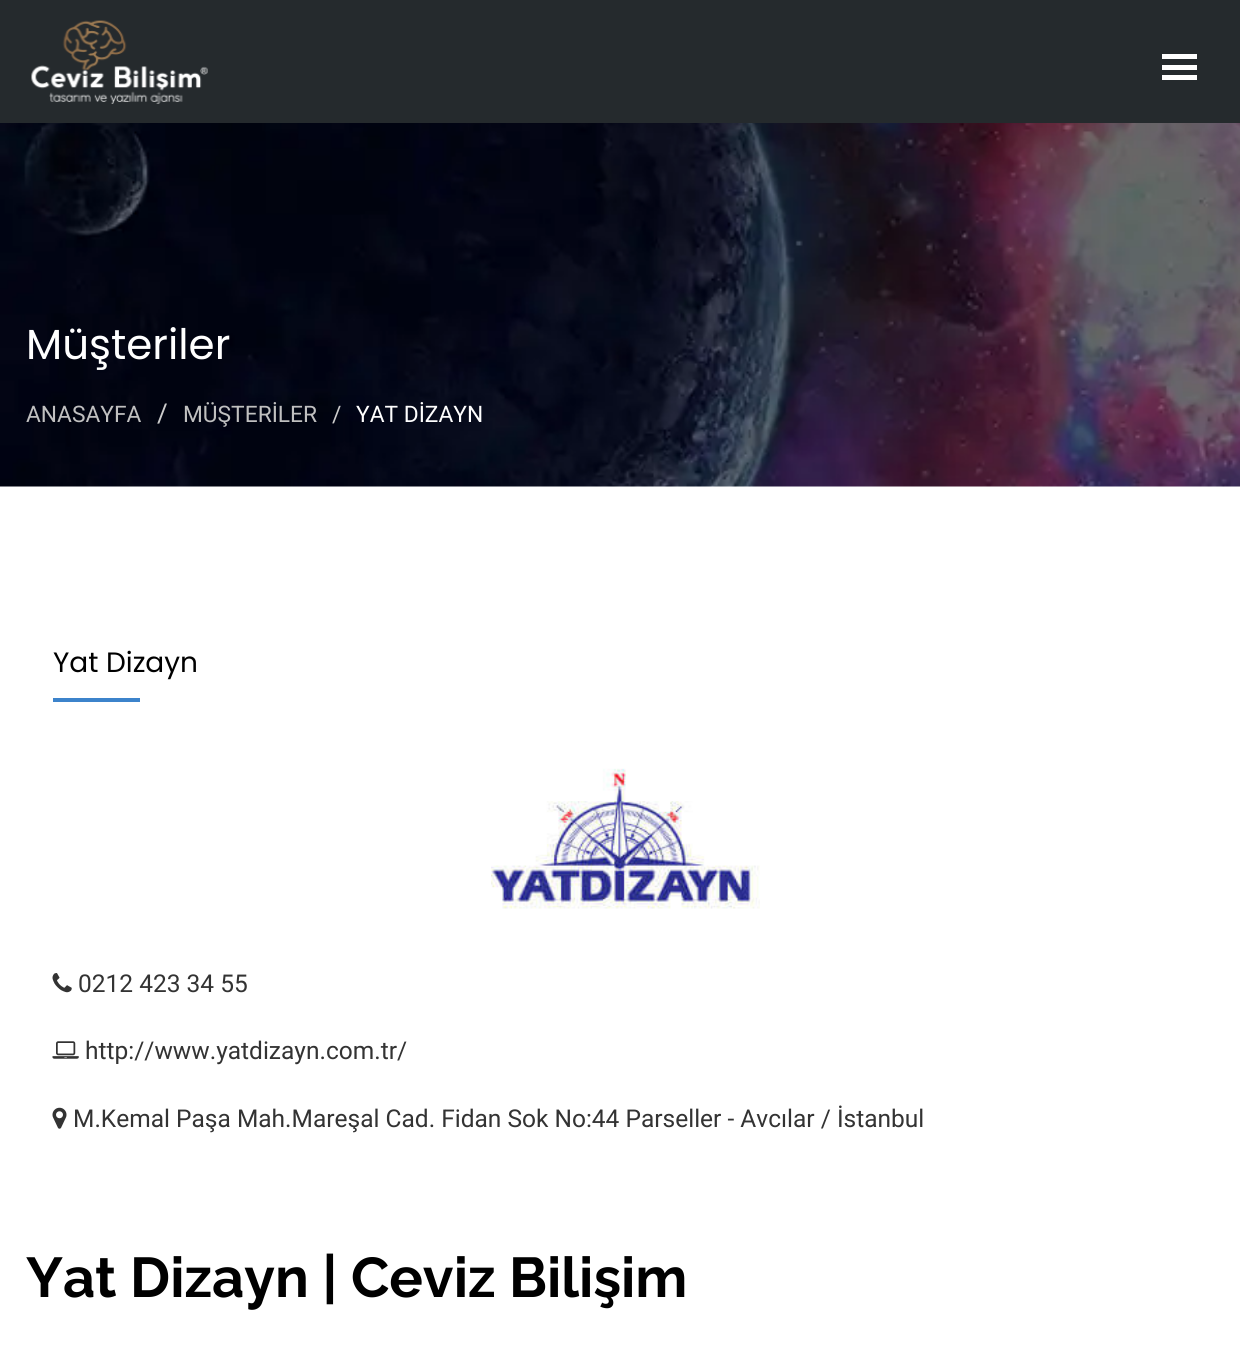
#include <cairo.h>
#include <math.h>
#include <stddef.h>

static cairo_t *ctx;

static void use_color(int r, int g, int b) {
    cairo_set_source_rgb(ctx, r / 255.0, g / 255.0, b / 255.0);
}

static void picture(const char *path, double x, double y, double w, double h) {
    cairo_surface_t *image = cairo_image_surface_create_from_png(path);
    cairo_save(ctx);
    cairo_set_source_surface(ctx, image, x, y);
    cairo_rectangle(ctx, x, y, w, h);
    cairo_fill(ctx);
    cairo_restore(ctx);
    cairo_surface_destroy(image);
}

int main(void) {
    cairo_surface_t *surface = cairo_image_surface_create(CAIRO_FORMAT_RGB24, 1240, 1345);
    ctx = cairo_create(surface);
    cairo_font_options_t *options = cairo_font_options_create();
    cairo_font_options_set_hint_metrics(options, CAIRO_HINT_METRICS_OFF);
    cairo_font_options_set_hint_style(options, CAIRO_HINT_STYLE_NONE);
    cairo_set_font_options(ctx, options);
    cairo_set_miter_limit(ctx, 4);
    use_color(255, 255, 255);
    cairo_paint(ctx);
    use_color(37, 42, 45);
    cairo_rectangle(ctx, 0, 0, 1240, 123);
    cairo_fill(ctx);
    picture("img1.png", 31, 20, 177, 84);
    use_color(255, 255, 255);
    cairo_rectangle(ctx, 1162, 65, 35, 5);
    cairo_fill(ctx);
    cairo_rectangle(ctx, 1162, 54, 35, 5);
    cairo_fill(ctx);
    cairo_rectangle(ctx, 1162, 75, 35, 5);
    cairo_fill(ctx);
    picture("img2.png", 0, 123, 1240, 364);
    cairo_select_font_face(ctx, "Poppins", CAIRO_FONT_SLANT_NORMAL, CAIRO_FONT_WEIGHT_NORMAL);
    cairo_set_font_size(ctx, 42);
    cairo_move_to(ctx, 26, 359);
    cairo_show_text(ctx, "Müşteriler");
    cairo_select_font_face(ctx, "Roboto", CAIRO_FONT_SLANT_NORMAL, CAIRO_FONT_WEIGHT_NORMAL);
    cairo_set_font_size(ctx, 22.75);
    use_color(192, 192, 192);
    cairo_move_to(ctx, 26, 422);
    cairo_show_text(ctx, "ANASAYFA");
    cairo_set_font_size(ctx, 26);
    use_color(204, 204, 204);
    cairo_move_to(ctx, 157, 422);
    cairo_show_text(ctx, "/");
    cairo_set_font_size(ctx, 22.75);
    use_color(192, 192, 192);
    cairo_move_to(ctx, 183, 422);
    cairo_show_text(ctx, "MÜŞTERİLER");
    use_color(204, 204, 204);
    cairo_move_to(ctx, 332, 422);
    cairo_show_text(ctx, "/");
    use_color(255, 255, 255);
    cairo_move_to(ctx, 356, 422);
    cairo_show_text(ctx, "YAT DİZAYN");
    cairo_select_font_face(ctx, "Poppins", CAIRO_FONT_SLANT_NORMAL, CAIRO_FONT_WEIGHT_NORMAL);
    cairo_set_font_size(ctx, 28);
    use_color(0, 0, 0);
    cairo_move_to(ctx, 53, 672);
    cairo_show_text(ctx, "Yat Dizayn");
    use_color(60, 131, 203);
    cairo_rectangle(ctx, 53, 698, 87, 4);
    cairo_fill(ctx);
    picture("img3.png", 491, 768, 269, 141);
    picture("img4.png", 52, 973, 20, 20);
    cairo_select_font_face(ctx, "Roboto", CAIRO_FONT_SLANT_NORMAL, CAIRO_FONT_WEIGHT_NORMAL);
    cairo_set_font_size(ctx, 24.5);
    use_color(51, 51, 51);
    cairo_move_to(ctx, 78, 992);
    cairo_show_text(ctx, "0212 423 34 55");
    picture("img5.png", 52, 1041, 27, 18);
    cairo_move_to(ctx, 85, 1059);
    cairo_show_text(ctx, "http://www.yatdizayn.com.tr/");
    picture("img6.png", 52, 1107, 15, 22);
    cairo_move_to(ctx, 73, 1127);
    cairo_show_text(ctx, "M.Kemal Paşa Mah.Mareşal Cad. Fidan Sok No:44 Parseller - Avcılar / İstanbul");
    cairo_select_font_face(ctx, "Raleway", CAIRO_FONT_SLANT_NORMAL, CAIRO_FONT_WEIGHT_BOLD);
    cairo_set_font_size(ctx, 56);
    use_color(0, 0, 0);
    cairo_move_to(ctx, 26, 1297);
    cairo_show_text(ctx, "Yat Dizayn | Ceviz Bilişim");
    cairo_surface_write_to_png(surface, "result.png");
    cairo_font_options_destroy(options);
    cairo_destroy(ctx);
    cairo_surface_destroy(surface);
    return 0;
}
